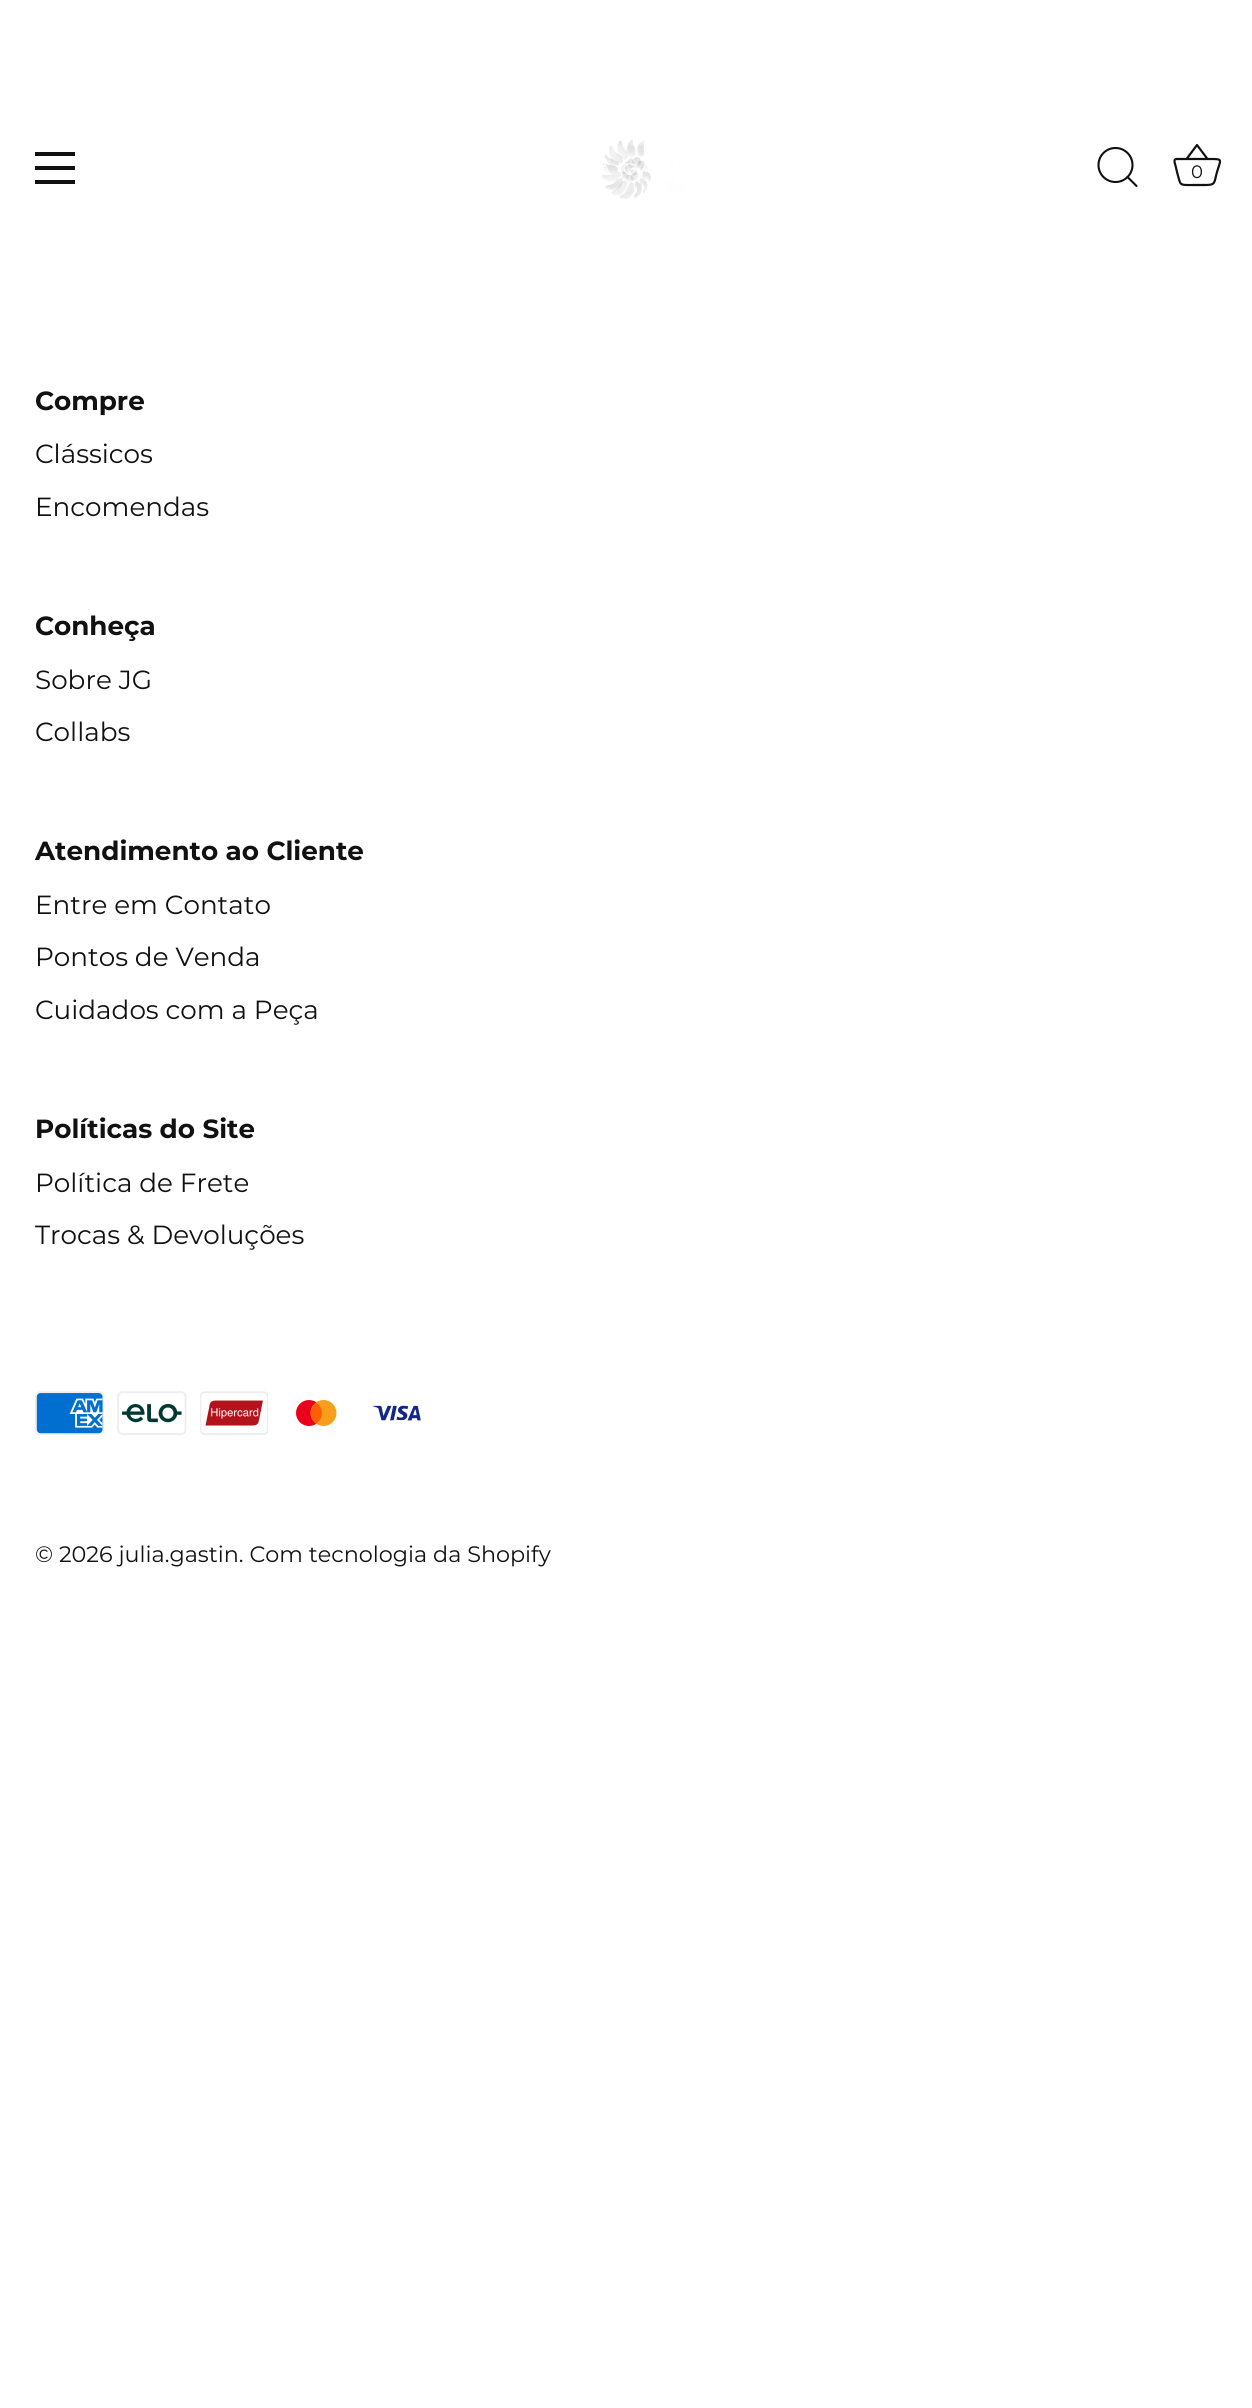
#include <cairo.h>
#include <math.h>
#include <stddef.h>

static cairo_t *ctx;

static void use_color(int r, int g, int b) {
    cairo_set_source_rgb(ctx, r / 255.0, g / 255.0, b / 255.0);
}

static void picture(const char *path, double x, double y, double w, double h) {
    cairo_surface_t *image = cairo_image_surface_create_from_png(path);
    cairo_save(ctx);
    cairo_set_source_surface(ctx, image, x, y);
    cairo_rectangle(ctx, x, y, w, h);
    cairo_fill(ctx);
    cairo_restore(ctx);
    cairo_surface_destroy(image);
}

int main(void) {
    cairo_surface_t *surface = cairo_image_surface_create(CAIRO_FORMAT_RGB24, 1252, 2408);
    ctx = cairo_create(surface);
    cairo_font_options_t *options = cairo_font_options_create();
    cairo_font_options_set_hint_metrics(options, CAIRO_HINT_METRICS_OFF);
    cairo_font_options_set_hint_style(options, CAIRO_HINT_STYLE_NONE);
    cairo_set_font_options(ctx, options);
    cairo_set_miter_limit(ctx, 4);
    use_color(255, 255, 255);
    cairo_paint(ctx);
    use_color(17, 17, 17);
    cairo_rectangle(ctx, 35, 152, 40, 4);
    cairo_fill(ctx);
    cairo_rectangle(ctx, 35, 166, 40, 4);
    cairo_fill(ctx);
    cairo_rectangle(ctx, 35, 180, 40, 4);
    cairo_fill(ctx);
    picture("img1.png", 602, 139, 82, 60);
    cairo_arc(ctx, 1115.5, 165, 17, 0, 2 * M_PI);
    cairo_set_line_width(ctx, 2.1);
    cairo_stroke(ctx);
    cairo_new_path(ctx);
    cairo_move_to(ctx, 1136.5, 186);
    cairo_line_to(ctx, 1127.5, 177);
    cairo_set_line_cap(ctx, CAIRO_LINE_CAP_ROUND);
    cairo_set_line_join(ctx, CAIRO_LINE_JOIN_ROUND);
    cairo_stroke(ctx);
    cairo_new_path(ctx);
    cairo_move_to(ctx, 1176.5, 159);
    cairo_curve_to(ctx, 1173, 159, 1175, 164, 1175.5, 165.5);
    cairo_line_to(ctx, 1177, 172);
    cairo_curve_to(ctx, 1181, 186, 1178.5, 185, 1193, 185);
    cairo_line_to(ctx, 1205.5, 185);
    cairo_curve_to(ctx, 1216, 185, 1214, 182.5, 1217, 172);
    cairo_curve_to(ctx, 1220.5, 159.5, 1223.5, 159, 1210.5, 159);
    cairo_line_to(ctx, 1176.5, 159);
    cairo_move_to(ctx, 1186.5, 159);
    cairo_line_to(ctx, 1197, 145);
    cairo_line_to(ctx, 1207.5, 159);
    cairo_set_line_width(ctx, 2.2);
    cairo_set_line_cap(ctx, CAIRO_LINE_CAP_BUTT);
    cairo_stroke(ctx);
    cairo_select_font_face(ctx, "Montserrat", CAIRO_FONT_SLANT_NORMAL, CAIRO_FONT_WEIGHT_NORMAL);
    cairo_set_font_size(ctx, 18);
    cairo_move_to(ctx, 1191, 178);
    cairo_show_text(ctx, "0");
    cairo_select_font_face(ctx, "Montserrat", CAIRO_FONT_SLANT_NORMAL, CAIRO_FONT_WEIGHT_BOLD);
    cairo_set_font_size(ctx, 26.25);
    cairo_move_to(ctx, 35, 410);
    cairo_show_text(ctx, "Compre");
    cairo_select_font_face(ctx, "Montserrat", CAIRO_FONT_SLANT_NORMAL, CAIRO_FONT_WEIGHT_NORMAL);
    cairo_move_to(ctx, 35, 463);
    cairo_show_text(ctx, "Clássicos");
    cairo_move_to(ctx, 35, 516);
    cairo_show_text(ctx, "Encomendas");
    cairo_select_font_face(ctx, "Montserrat", CAIRO_FONT_SLANT_NORMAL, CAIRO_FONT_WEIGHT_BOLD);
    cairo_move_to(ctx, 35, 635);
    cairo_show_text(ctx, "Conheça");
    cairo_select_font_face(ctx, "Montserrat", CAIRO_FONT_SLANT_NORMAL, CAIRO_FONT_WEIGHT_NORMAL);
    cairo_move_to(ctx, 35, 689);
    cairo_show_text(ctx, "Sobre JG");
    cairo_move_to(ctx, 35, 741);
    cairo_show_text(ctx, "Collabs");
    cairo_select_font_face(ctx, "Montserrat", CAIRO_FONT_SLANT_NORMAL, CAIRO_FONT_WEIGHT_BOLD);
    cairo_move_to(ctx, 35, 860);
    cairo_show_text(ctx, "Atendimento ao Cliente");
    cairo_select_font_face(ctx, "Montserrat", CAIRO_FONT_SLANT_NORMAL, CAIRO_FONT_WEIGHT_NORMAL);
    cairo_move_to(ctx, 35, 914);
    cairo_show_text(ctx, "Entre em Contato");
    cairo_move_to(ctx, 35, 966);
    cairo_show_text(ctx, "Pontos de Venda");
    cairo_move_to(ctx, 35, 1019);
    cairo_show_text(ctx, "Cuidados com a Peça");
    cairo_select_font_face(ctx, "Montserrat", CAIRO_FONT_SLANT_NORMAL, CAIRO_FONT_WEIGHT_BOLD);
    cairo_move_to(ctx, 35, 1138);
    cairo_show_text(ctx, "Políticas do Site");
    cairo_select_font_face(ctx, "Montserrat", CAIRO_FONT_SLANT_NORMAL, CAIRO_FONT_WEIGHT_NORMAL);
    cairo_move_to(ctx, 35, 1192);
    cairo_show_text(ctx, "Política de Frete");
    cairo_move_to(ctx, 35, 1244);
    cairo_show_text(ctx, "Trocas & Devoluções");
    picture("img2.png", 35, 1391, 69, 44);
    picture("img3.png", 117, 1391, 70, 44);
    picture("img4.png", 200, 1391, 68, 44);
    picture("img5.png", 296, 1400, 41, 26);
    picture("img6.png", 373, 1405, 48, 16);
    cairo_set_font_size(ctx, 22.3);
    cairo_move_to(ctx, 35, 1562);
    cairo_show_text(ctx, "© 2026 julia.gastin. Com tecnologia da Shopify");
    cairo_surface_write_to_png(surface, "result.png");
    cairo_font_options_destroy(options);
    cairo_destroy(ctx);
    cairo_surface_destroy(surface);
    return 0;
}
